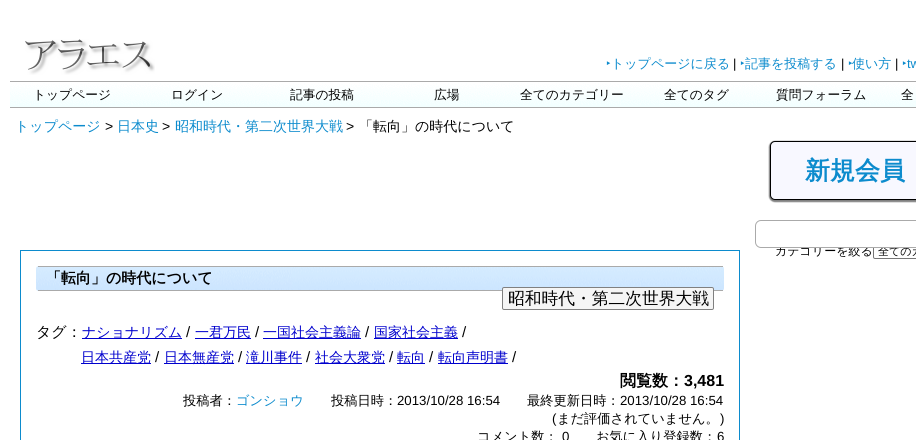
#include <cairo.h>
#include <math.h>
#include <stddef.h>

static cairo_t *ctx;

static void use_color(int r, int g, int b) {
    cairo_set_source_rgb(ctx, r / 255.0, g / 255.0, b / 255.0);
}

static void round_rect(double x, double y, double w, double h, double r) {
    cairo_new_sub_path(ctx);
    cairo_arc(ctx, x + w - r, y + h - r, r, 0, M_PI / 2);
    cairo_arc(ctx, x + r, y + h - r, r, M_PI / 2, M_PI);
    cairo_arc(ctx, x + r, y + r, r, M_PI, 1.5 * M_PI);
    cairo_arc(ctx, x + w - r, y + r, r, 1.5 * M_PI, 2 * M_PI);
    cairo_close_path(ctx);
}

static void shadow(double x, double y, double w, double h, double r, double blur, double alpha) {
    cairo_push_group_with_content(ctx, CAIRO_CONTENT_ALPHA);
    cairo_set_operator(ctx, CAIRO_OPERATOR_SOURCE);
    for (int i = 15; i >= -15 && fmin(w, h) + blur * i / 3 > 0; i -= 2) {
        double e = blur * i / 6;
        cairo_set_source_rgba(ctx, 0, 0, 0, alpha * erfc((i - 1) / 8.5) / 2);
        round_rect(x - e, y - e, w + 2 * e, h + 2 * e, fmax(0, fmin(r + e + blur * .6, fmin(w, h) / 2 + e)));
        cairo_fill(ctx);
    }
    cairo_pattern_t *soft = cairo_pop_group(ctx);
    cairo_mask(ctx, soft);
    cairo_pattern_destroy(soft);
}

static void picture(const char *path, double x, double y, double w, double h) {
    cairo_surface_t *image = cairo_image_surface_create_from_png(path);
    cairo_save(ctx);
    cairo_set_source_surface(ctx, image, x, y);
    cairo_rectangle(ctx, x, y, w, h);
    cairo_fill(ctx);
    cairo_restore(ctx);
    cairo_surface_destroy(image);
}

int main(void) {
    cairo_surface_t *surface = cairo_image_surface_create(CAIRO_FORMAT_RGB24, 916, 440);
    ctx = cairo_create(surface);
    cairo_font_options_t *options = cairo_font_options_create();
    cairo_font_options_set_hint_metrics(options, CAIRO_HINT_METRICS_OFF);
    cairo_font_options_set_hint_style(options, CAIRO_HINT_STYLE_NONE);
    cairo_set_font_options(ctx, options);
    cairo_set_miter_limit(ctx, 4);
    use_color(255, 255, 255);
    cairo_paint(ctx);
    picture("img1.png", 25, 39, 130, 36);
    cairo_select_font_face(ctx, "Noto Sans", CAIRO_FONT_SLANT_NORMAL, CAIRO_FONT_WEIGHT_NORMAL);
    cairo_set_font_size(ctx, 13);
    use_color(12, 139, 205);
    cairo_move_to(ctx, 606, 68);
    cairo_show_text(ctx, "‣");
    cairo_select_font_face(ctx, "WenQuanYi Zen Hei Medium", CAIRO_FONT_SLANT_NORMAL, CAIRO_FONT_WEIGHT_NORMAL);
    cairo_move_to(ctx, 611, 68);
    cairo_show_text(ctx, "トップページに戻る");
    cairo_select_font_face(ctx, "Liberation Sans", CAIRO_FONT_SLANT_NORMAL, CAIRO_FONT_WEIGHT_NORMAL);
    use_color(0, 0, 0);
    cairo_move_to(ctx, 733, 68);
    cairo_show_text(ctx, "|");
    cairo_select_font_face(ctx, "Noto Sans", CAIRO_FONT_SLANT_NORMAL, CAIRO_FONT_WEIGHT_NORMAL);
    use_color(12, 139, 205);
    cairo_move_to(ctx, 740, 68);
    cairo_show_text(ctx, "‣");
    cairo_select_font_face(ctx, "WenQuanYi Zen Hei Medium", CAIRO_FONT_SLANT_NORMAL, CAIRO_FONT_WEIGHT_NORMAL);
    cairo_move_to(ctx, 745, 68);
    cairo_show_text(ctx, "記事を投稿する");
    cairo_select_font_face(ctx, "Liberation Sans", CAIRO_FONT_SLANT_NORMAL, CAIRO_FONT_WEIGHT_NORMAL);
    use_color(0, 0, 0);
    cairo_move_to(ctx, 841, 68);
    cairo_show_text(ctx, "|");
    cairo_select_font_face(ctx, "Noto Sans", CAIRO_FONT_SLANT_NORMAL, CAIRO_FONT_WEIGHT_NORMAL);
    use_color(12, 139, 205);
    cairo_move_to(ctx, 848, 68);
    cairo_show_text(ctx, "‣");
    cairo_select_font_face(ctx, "WenQuanYi Zen Hei Medium", CAIRO_FONT_SLANT_NORMAL, CAIRO_FONT_WEIGHT_NORMAL);
    cairo_move_to(ctx, 852, 68);
    cairo_show_text(ctx, "使い方");
    cairo_select_font_face(ctx, "Liberation Sans", CAIRO_FONT_SLANT_NORMAL, CAIRO_FONT_WEIGHT_NORMAL);
    use_color(0, 0, 0);
    cairo_move_to(ctx, 895, 68);
    cairo_show_text(ctx, "|");
    cairo_select_font_face(ctx, "Noto Sans", CAIRO_FONT_SLANT_NORMAL, CAIRO_FONT_WEIGHT_NORMAL);
    use_color(12, 139, 205);
    cairo_move_to(ctx, 902, 68);
    cairo_show_text(ctx, "‣");
    cairo_select_font_face(ctx, "Liberation Sans", CAIRO_FONT_SLANT_NORMAL, CAIRO_FONT_WEIGHT_NORMAL);
    cairo_move_to(ctx, 907, 68);
    cairo_show_text(ctx, "tw");
    picture("img2.png", 10, 82, 906, 25);
    use_color(170, 170, 170);
    cairo_rectangle(ctx, 10, 81, 906, 1);
    cairo_fill(ctx);
    cairo_rectangle(ctx, 10, 107, 906, 1);
    cairo_fill(ctx);
    cairo_select_font_face(ctx, "WenQuanYi Zen Hei Medium", CAIRO_FONT_SLANT_NORMAL, CAIRO_FONT_WEIGHT_NORMAL);
    cairo_set_font_size(ctx, 12.75);
    use_color(0, 0, 0);
    cairo_move_to(ctx, 33, 99);
    cairo_show_text(ctx, "トップページ");
    cairo_move_to(ctx, 171, 99);
    cairo_show_text(ctx, "ログイン");
    cairo_move_to(ctx, 290, 99);
    cairo_show_text(ctx, "記事の投稿");
    cairo_move_to(ctx, 434, 99);
    cairo_show_text(ctx, "広場");
    cairo_move_to(ctx, 520, 99);
    cairo_show_text(ctx, "全てのカテゴリー");
    cairo_move_to(ctx, 664, 99);
    cairo_show_text(ctx, "全てのタグ");
    cairo_move_to(ctx, 776, 99);
    cairo_show_text(ctx, "質問フォーラム");
    cairo_move_to(ctx, 901, 99);
    cairo_show_text(ctx, "全");
    cairo_set_font_size(ctx, 14);
    use_color(12, 139, 205);
    cairo_move_to(ctx, 15, 131);
    cairo_show_text(ctx, "トップページ");
    cairo_select_font_face(ctx, "Liberation Sans", CAIRO_FONT_SLANT_NORMAL, CAIRO_FONT_WEIGHT_NORMAL);
    use_color(0, 0, 0);
    cairo_move_to(ctx, 105, 131);
    cairo_show_text(ctx, ">");
    cairo_select_font_face(ctx, "WenQuanYi Zen Hei Medium", CAIRO_FONT_SLANT_NORMAL, CAIRO_FONT_WEIGHT_NORMAL);
    use_color(12, 139, 205);
    cairo_move_to(ctx, 117, 131);
    cairo_show_text(ctx, "日本史");
    cairo_select_font_face(ctx, "Liberation Sans", CAIRO_FONT_SLANT_NORMAL, CAIRO_FONT_WEIGHT_NORMAL);
    use_color(0, 0, 0);
    cairo_move_to(ctx, 162, 131);
    cairo_show_text(ctx, ">");
    cairo_select_font_face(ctx, "WenQuanYi Zen Hei Medium", CAIRO_FONT_SLANT_NORMAL, CAIRO_FONT_WEIGHT_NORMAL);
    use_color(12, 139, 205);
    cairo_move_to(ctx, 175, 131);
    cairo_show_text(ctx, "昭和時代・第二次世界大戦");
    cairo_select_font_face(ctx, "Liberation Sans", CAIRO_FONT_SLANT_NORMAL, CAIRO_FONT_WEIGHT_NORMAL);
    use_color(0, 0, 0);
    cairo_move_to(ctx, 346, 131);
    cairo_show_text(ctx, ">");
    cairo_select_font_face(ctx, "WenQuanYi Zen Hei Medium", CAIRO_FONT_SLANT_NORMAL, CAIRO_FONT_WEIGHT_NORMAL);
    cairo_move_to(ctx, 359, 131);
    cairo_show_text(ctx, "「転向」の時代について");
    use_color(0, 0, 0);
    shadow(769, 141, 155, 61, 6, 0.5, 0.5);
    use_color(248, 248, 255);
    round_rect(770.5, 141.5, 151, 58, 4.5);
    cairo_fill_preserve(ctx);
    use_color(0, 0, 0);
    cairo_set_line_width(ctx, 1);
    cairo_stroke(ctx);
    cairo_select_font_face(ctx, "WenQuanYi Zen Hei", CAIRO_FONT_SLANT_NORMAL, CAIRO_FONT_WEIGHT_BOLD);
    cairo_set_font_size(ctx, 25);
    use_color(12, 139, 205);
    cairo_move_to(ctx, 805, 179);
    cairo_show_text(ctx, "新規会員");
    cairo_select_font_face(ctx, "WenQuanYi Zen Hei Medium", CAIRO_FONT_SLANT_NORMAL, CAIRO_FONT_WEIGHT_NORMAL);
    cairo_set_font_size(ctx, 12);
    use_color(0, 0, 0);
    cairo_move_to(ctx, 775, 255);
    cairo_show_text(ctx, "カテゴリーを絞る");
    round_rect(873.5, 243.5, 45, 15, 1.5);
    use_color(118, 118, 118);
    cairo_stroke(ctx);
    cairo_set_font_size(ctx, 11);
    use_color(0, 0, 0);
    cairo_move_to(ctx, 878, 255);
    cairo_show_text(ctx, "全てのカ");
    use_color(255, 255, 255);
    round_rect(755.5, 220.5, 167, 27, 5.5);
    cairo_fill_preserve(ctx);
    use_color(170, 170, 170);
    cairo_stroke(ctx);
    cairo_rectangle(ctx, 20.5, 250.5, 719, 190);
    use_color(12, 139, 205);
    cairo_stroke(ctx);
    picture("img3.png", 36, 266, 688, 25);
    use_color(170, 170, 170);
    cairo_rectangle(ctx, 38, 266, 685, 1);
    cairo_fill(ctx);
    cairo_rectangle(ctx, 38, 290, 685, 1);
    cairo_fill(ctx);
    cairo_select_font_face(ctx, "WenQuanYi Zen Hei", CAIRO_FONT_SLANT_NORMAL, CAIRO_FONT_WEIGHT_BOLD);
    cairo_set_font_size(ctx, 15);
    use_color(0, 0, 0);
    cairo_move_to(ctx, 46, 283);
    cairo_show_text(ctx, "「転向」の時代について");
    use_color(245, 245, 245);
    round_rect(502.5, 287.5, 211, 22, 1.5);
    cairo_fill_preserve(ctx);
    use_color(128, 128, 128);
    cairo_stroke(ctx);
    cairo_select_font_face(ctx, "WenQuanYi Zen Hei Medium", CAIRO_FONT_SLANT_NORMAL, CAIRO_FONT_WEIGHT_NORMAL);
    cairo_set_font_size(ctx, 16.75);
    use_color(0, 0, 0);
    cairo_move_to(ctx, 508, 304);
    cairo_show_text(ctx, "昭和時代・第二次世界大戦");
    cairo_set_font_size(ctx, 15);
    cairo_move_to(ctx, 36, 337);
    cairo_show_text(ctx, "タグ：");
    use_color(0, 0, 205);
    cairo_rectangle(ctx, 82, 338, 100, 1);
    cairo_fill(ctx);
    cairo_set_font_size(ctx, 14);
    cairo_move_to(ctx, 82, 337);
    cairo_show_text(ctx, "ナショナリズム");
    cairo_select_font_face(ctx, "Liberation Sans", CAIRO_FONT_SLANT_NORMAL, CAIRO_FONT_WEIGHT_NORMAL);
    cairo_set_font_size(ctx, 15);
    use_color(0, 0, 0);
    cairo_move_to(ctx, 186, 337);
    cairo_show_text(ctx, "/");
    use_color(0, 0, 205);
    cairo_rectangle(ctx, 195, 338, 56, 1);
    cairo_fill(ctx);
    cairo_select_font_face(ctx, "WenQuanYi Zen Hei Medium", CAIRO_FONT_SLANT_NORMAL, CAIRO_FONT_WEIGHT_NORMAL);
    cairo_set_font_size(ctx, 14);
    cairo_move_to(ctx, 195, 337);
    cairo_show_text(ctx, "一君万民");
    cairo_select_font_face(ctx, "Liberation Sans", CAIRO_FONT_SLANT_NORMAL, CAIRO_FONT_WEIGHT_NORMAL);
    cairo_set_font_size(ctx, 15);
    use_color(0, 0, 0);
    cairo_move_to(ctx, 255, 337);
    cairo_show_text(ctx, "/");
    use_color(0, 0, 205);
    cairo_rectangle(ctx, 263, 338, 98, 1);
    cairo_fill(ctx);
    cairo_select_font_face(ctx, "WenQuanYi Zen Hei Medium", CAIRO_FONT_SLANT_NORMAL, CAIRO_FONT_WEIGHT_NORMAL);
    cairo_set_font_size(ctx, 14);
    cairo_move_to(ctx, 263, 337);
    cairo_show_text(ctx, "一国社会主義論");
    cairo_select_font_face(ctx, "Liberation Sans", CAIRO_FONT_SLANT_NORMAL, CAIRO_FONT_WEIGHT_NORMAL);
    cairo_set_font_size(ctx, 15);
    use_color(0, 0, 0);
    cairo_move_to(ctx, 365, 337);
    cairo_show_text(ctx, "/");
    use_color(0, 0, 205);
    cairo_rectangle(ctx, 374, 338, 84, 1);
    cairo_fill(ctx);
    cairo_select_font_face(ctx, "WenQuanYi Zen Hei Medium", CAIRO_FONT_SLANT_NORMAL, CAIRO_FONT_WEIGHT_NORMAL);
    cairo_set_font_size(ctx, 14);
    cairo_move_to(ctx, 374, 337);
    cairo_show_text(ctx, "国家社会主義");
    cairo_select_font_face(ctx, "Liberation Sans", CAIRO_FONT_SLANT_NORMAL, CAIRO_FONT_WEIGHT_NORMAL);
    cairo_set_font_size(ctx, 15);
    use_color(0, 0, 0);
    cairo_move_to(ctx, 462, 337);
    cairo_show_text(ctx, "/");
    use_color(0, 0, 205);
    cairo_rectangle(ctx, 81, 363, 70, 1);
    cairo_fill(ctx);
    cairo_select_font_face(ctx, "WenQuanYi Zen Hei Medium", CAIRO_FONT_SLANT_NORMAL, CAIRO_FONT_WEIGHT_NORMAL);
    cairo_set_font_size(ctx, 14);
    cairo_move_to(ctx, 81, 362);
    cairo_show_text(ctx, "日本共産党");
    cairo_select_font_face(ctx, "Liberation Sans", CAIRO_FONT_SLANT_NORMAL, CAIRO_FONT_WEIGHT_NORMAL);
    cairo_set_font_size(ctx, 15);
    use_color(0, 0, 0);
    cairo_move_to(ctx, 155, 362);
    cairo_show_text(ctx, "/");
    use_color(0, 0, 205);
    cairo_rectangle(ctx, 164, 363, 70, 1);
    cairo_fill(ctx);
    cairo_select_font_face(ctx, "WenQuanYi Zen Hei Medium", CAIRO_FONT_SLANT_NORMAL, CAIRO_FONT_WEIGHT_NORMAL);
    cairo_set_font_size(ctx, 14);
    cairo_move_to(ctx, 164, 362);
    cairo_show_text(ctx, "日本無産党");
    cairo_select_font_face(ctx, "Liberation Sans", CAIRO_FONT_SLANT_NORMAL, CAIRO_FONT_WEIGHT_NORMAL);
    cairo_set_font_size(ctx, 15);
    use_color(0, 0, 0);
    cairo_move_to(ctx, 238, 362);
    cairo_show_text(ctx, "/");
    use_color(0, 0, 205);
    cairo_rectangle(ctx, 246, 363, 56, 1);
    cairo_fill(ctx);
    cairo_select_font_face(ctx, "WenQuanYi Zen Hei Medium", CAIRO_FONT_SLANT_NORMAL, CAIRO_FONT_WEIGHT_NORMAL);
    cairo_set_font_size(ctx, 14);
    cairo_move_to(ctx, 246, 362);
    cairo_show_text(ctx, "滝川事件");
    cairo_select_font_face(ctx, "Liberation Sans", CAIRO_FONT_SLANT_NORMAL, CAIRO_FONT_WEIGHT_NORMAL);
    cairo_set_font_size(ctx, 15);
    use_color(0, 0, 0);
    cairo_move_to(ctx, 306, 362);
    cairo_show_text(ctx, "/");
    use_color(0, 0, 205);
    cairo_rectangle(ctx, 315, 363, 70, 1);
    cairo_fill(ctx);
    cairo_select_font_face(ctx, "WenQuanYi Zen Hei Medium", CAIRO_FONT_SLANT_NORMAL, CAIRO_FONT_WEIGHT_NORMAL);
    cairo_set_font_size(ctx, 14);
    cairo_move_to(ctx, 315, 362);
    cairo_show_text(ctx, "社会大衆党");
    cairo_select_font_face(ctx, "Liberation Sans", CAIRO_FONT_SLANT_NORMAL, CAIRO_FONT_WEIGHT_NORMAL);
    cairo_set_font_size(ctx, 15);
    use_color(0, 0, 0);
    cairo_move_to(ctx, 389, 362);
    cairo_show_text(ctx, "/");
    use_color(0, 0, 205);
    cairo_rectangle(ctx, 397, 363, 28, 1);
    cairo_fill(ctx);
    cairo_select_font_face(ctx, "WenQuanYi Zen Hei Medium", CAIRO_FONT_SLANT_NORMAL, CAIRO_FONT_WEIGHT_NORMAL);
    cairo_set_font_size(ctx, 14);
    cairo_move_to(ctx, 397, 362);
    cairo_show_text(ctx, "転向");
    cairo_select_font_face(ctx, "Liberation Sans", CAIRO_FONT_SLANT_NORMAL, CAIRO_FONT_WEIGHT_NORMAL);
    cairo_set_font_size(ctx, 15);
    use_color(0, 0, 0);
    cairo_move_to(ctx, 429, 362);
    cairo_show_text(ctx, "/");
    use_color(0, 0, 205);
    cairo_rectangle(ctx, 438, 363, 70, 1);
    cairo_fill(ctx);
    cairo_select_font_face(ctx, "WenQuanYi Zen Hei Medium", CAIRO_FONT_SLANT_NORMAL, CAIRO_FONT_WEIGHT_NORMAL);
    cairo_set_font_size(ctx, 14);
    cairo_move_to(ctx, 438, 362);
    cairo_show_text(ctx, "転向声明書");
    cairo_select_font_face(ctx, "Liberation Sans", CAIRO_FONT_SLANT_NORMAL, CAIRO_FONT_WEIGHT_NORMAL);
    cairo_set_font_size(ctx, 15);
    use_color(0, 0, 0);
    cairo_move_to(ctx, 512, 362);
    cairo_show_text(ctx, "/");
    cairo_select_font_face(ctx, "WenQuanYi Zen Hei", CAIRO_FONT_SLANT_NORMAL, CAIRO_FONT_WEIGHT_BOLD);
    cairo_set_font_size(ctx, 16);
    cairo_move_to(ctx, 620, 386);
    cairo_show_text(ctx, "閲覧数：");
    cairo_select_font_face(ctx, "Liberation Sans", CAIRO_FONT_SLANT_NORMAL, CAIRO_FONT_WEIGHT_BOLD);
    cairo_move_to(ctx, 684, 386);
    cairo_show_text(ctx, "3,481");
    cairo_select_font_face(ctx, "WenQuanYi Zen Hei Medium", CAIRO_FONT_SLANT_NORMAL, CAIRO_FONT_WEIGHT_NORMAL);
    cairo_set_font_size(ctx, 13.25);
    cairo_move_to(ctx, 183, 405);
    cairo_show_text(ctx, "投稿者：");
    use_color(12, 139, 205);
    cairo_move_to(ctx, 236, 405);
    cairo_show_text(ctx, "ゴンショウ");
    use_color(0, 0, 0);
    cairo_move_to(ctx, 331, 405);
    cairo_show_text(ctx, "投稿日時：");
    cairo_select_font_face(ctx, "Liberation Sans", CAIRO_FONT_SLANT_NORMAL, CAIRO_FONT_WEIGHT_NORMAL);
    cairo_move_to(ctx, 397, 405);
    cairo_show_text(ctx, "2013/10/28 16:54");
    cairo_select_font_face(ctx, "WenQuanYi Zen Hei Medium", CAIRO_FONT_SLANT_NORMAL, CAIRO_FONT_WEIGHT_NORMAL);
    cairo_move_to(ctx, 527, 405);
    cairo_show_text(ctx, "最終更新日時：");
    cairo_select_font_face(ctx, "Liberation Sans", CAIRO_FONT_SLANT_NORMAL, CAIRO_FONT_WEIGHT_NORMAL);
    cairo_move_to(ctx, 620, 405);
    cairo_show_text(ctx, "2013/10/28 16:54");
    cairo_move_to(ctx, 552, 423);
    cairo_show_text(ctx, "(");
    cairo_select_font_face(ctx, "WenQuanYi Zen Hei Medium", CAIRO_FONT_SLANT_NORMAL, CAIRO_FONT_WEIGHT_NORMAL);
    cairo_move_to(ctx, 557, 423);
    cairo_show_text(ctx, "まだ評価されていません。");
    cairo_select_font_face(ctx, "Liberation Sans", CAIRO_FONT_SLANT_NORMAL, CAIRO_FONT_WEIGHT_NORMAL);
    cairo_move_to(ctx, 720, 423);
    cairo_show_text(ctx, ")");
    cairo_select_font_face(ctx, "WenQuanYi Zen Hei Medium", CAIRO_FONT_SLANT_NORMAL, CAIRO_FONT_WEIGHT_NORMAL);
    cairo_move_to(ctx, 477, 441);
    cairo_show_text(ctx, "コメント数：");
    cairo_select_font_face(ctx, "Liberation Sans", CAIRO_FONT_SLANT_NORMAL, CAIRO_FONT_WEIGHT_NORMAL);
    cairo_move_to(ctx, 562, 441);
    cairo_show_text(ctx, "0");
    cairo_select_font_face(ctx, "WenQuanYi Zen Hei Medium", CAIRO_FONT_SLANT_NORMAL, CAIRO_FONT_WEIGHT_NORMAL);
    cairo_move_to(ctx, 596, 441);
    cairo_show_text(ctx, "お気に入り登録数：");
    cairo_select_font_face(ctx, "Liberation Sans", CAIRO_FONT_SLANT_NORMAL, CAIRO_FONT_WEIGHT_NORMAL);
    cairo_move_to(ctx, 717, 441);
    cairo_show_text(ctx, "6");
    cairo_surface_write_to_png(surface, "result.png");
    cairo_font_options_destroy(options);
    cairo_destroy(ctx);
    cairo_surface_destroy(surface);
    return 0;
}
